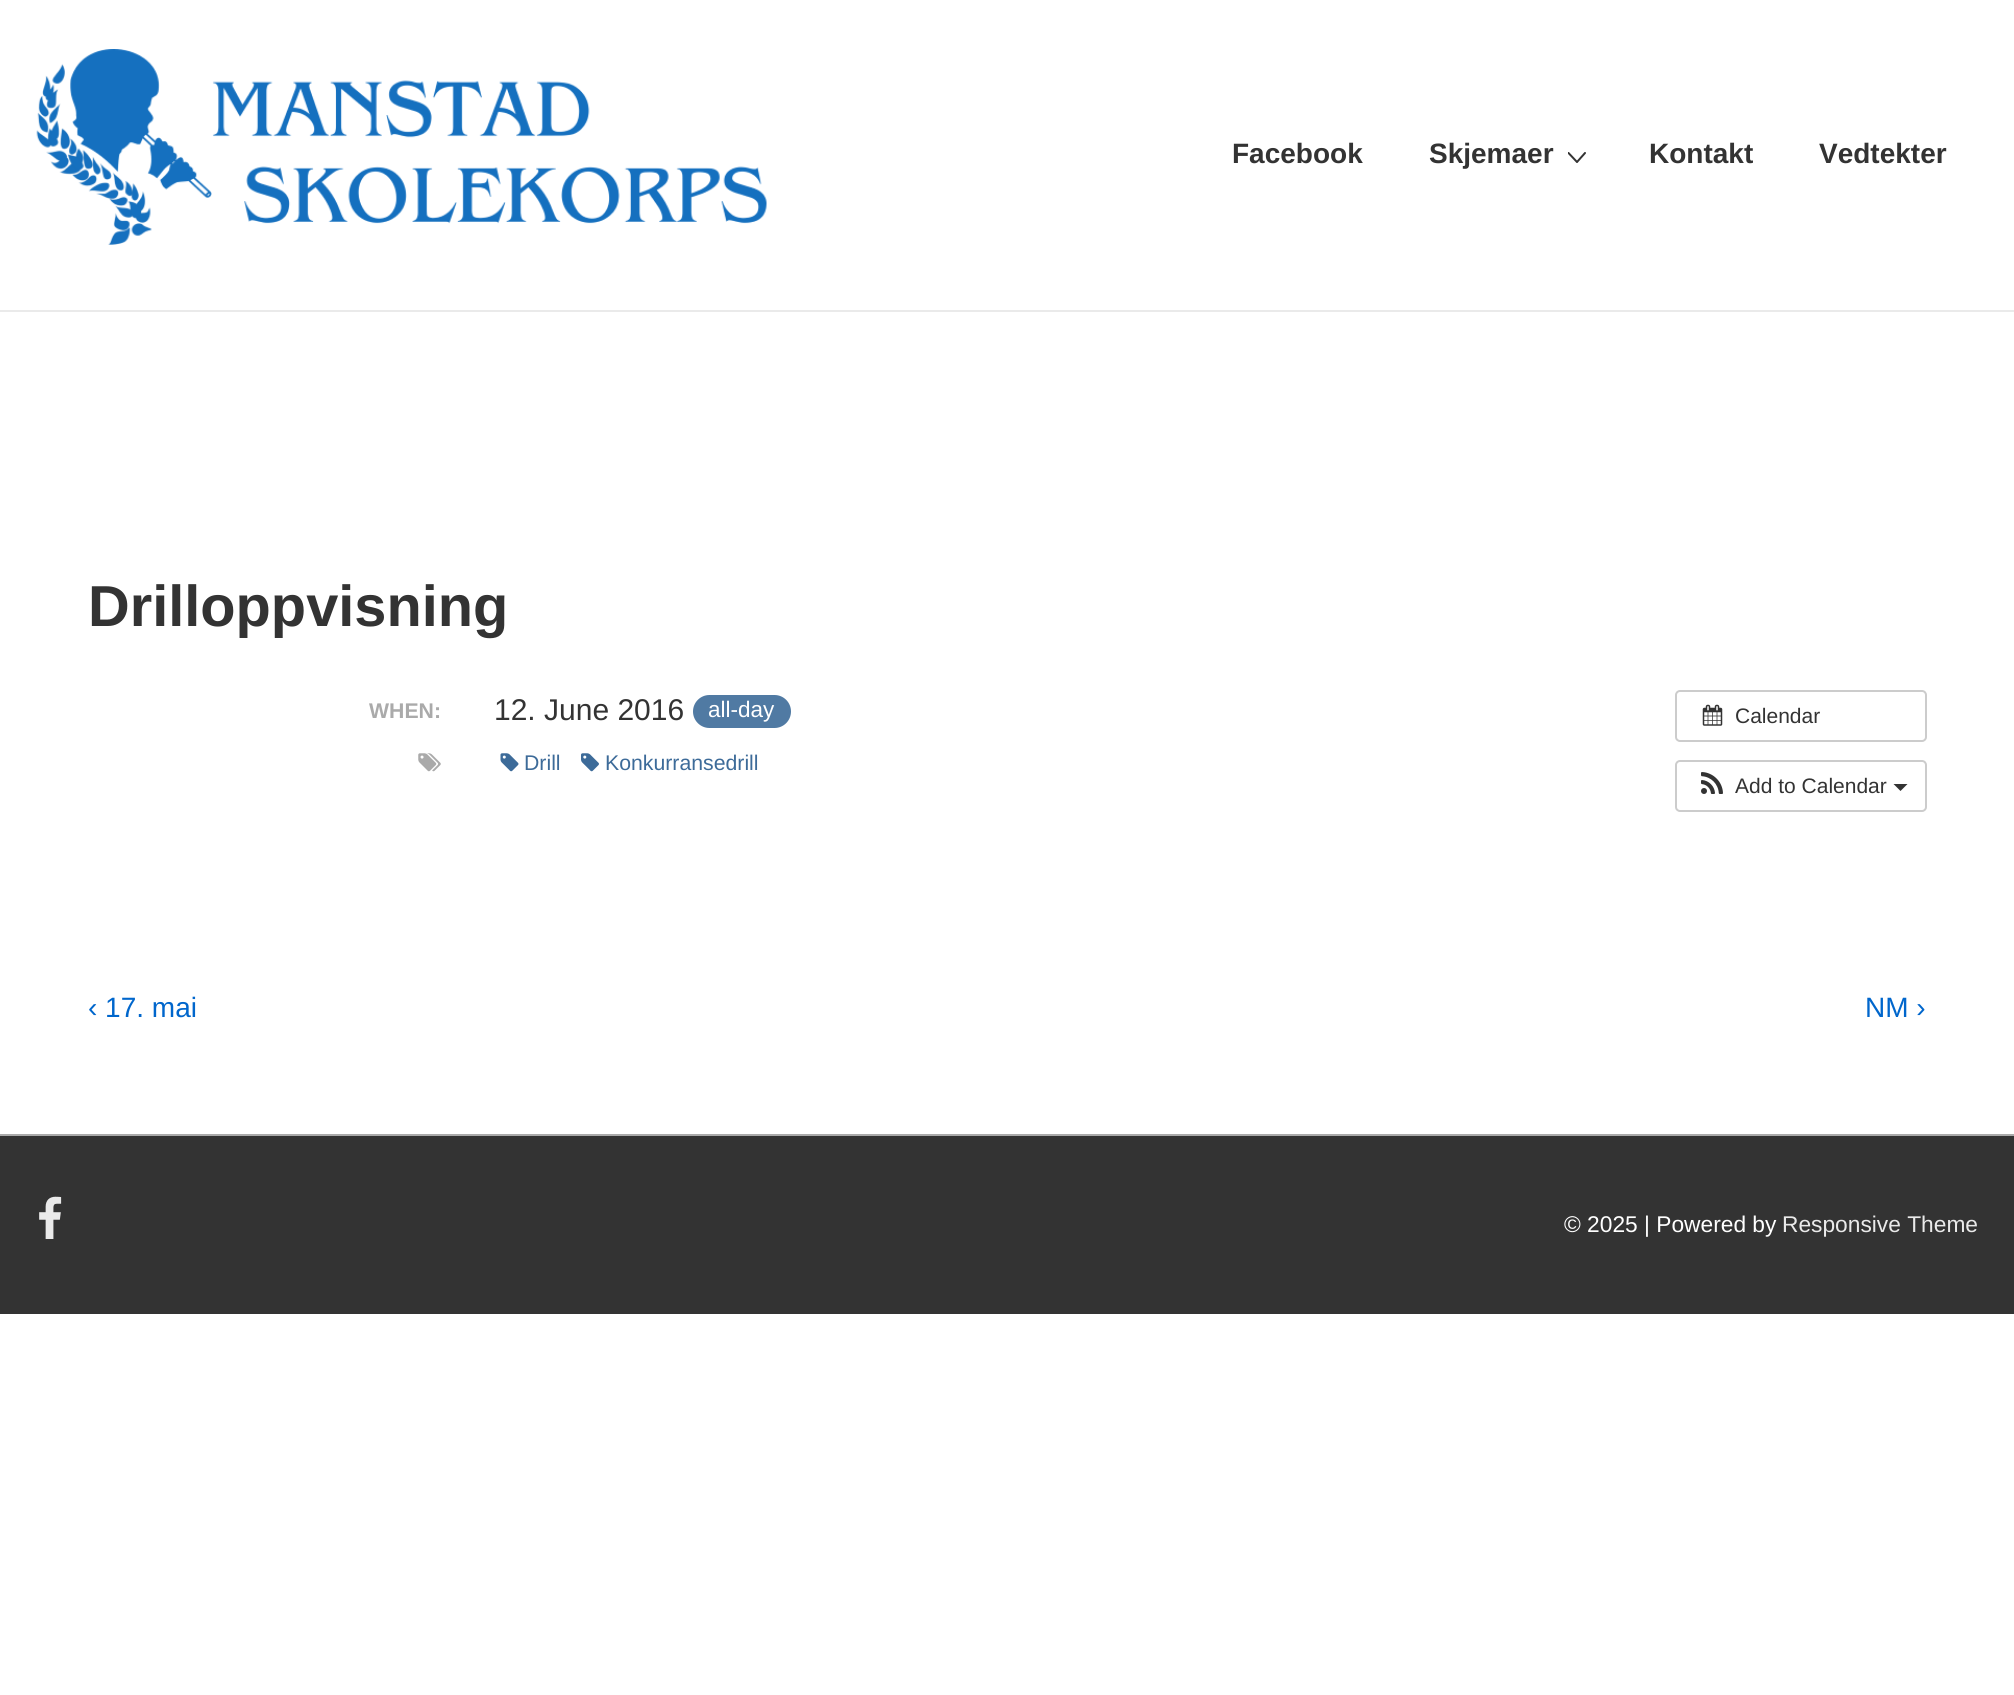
#include <cairo.h>
#include <math.h>
#include <stddef.h>

static cairo_t *ctx;

static void use_color(int r, int g, int b) {
    cairo_set_source_rgb(ctx, r / 255.0, g / 255.0, b / 255.0);
}

static void round_rect(double x, double y, double w, double h, double r) {
    cairo_new_sub_path(ctx);
    cairo_arc(ctx, x + w - r, y + h - r, r, 0, M_PI / 2);
    cairo_arc(ctx, x + r, y + h - r, r, M_PI / 2, M_PI);
    cairo_arc(ctx, x + r, y + r, r, M_PI, 1.5 * M_PI);
    cairo_arc(ctx, x + w - r, y + r, r, 1.5 * M_PI, 2 * M_PI);
    cairo_close_path(ctx);
}

static void picture(const char *path, double x, double y, double w, double h) {
    cairo_surface_t *image = cairo_image_surface_create_from_png(path);
    cairo_save(ctx);
    cairo_set_source_surface(ctx, image, x, y);
    cairo_rectangle(ctx, x, y, w, h);
    cairo_fill(ctx);
    cairo_restore(ctx);
    cairo_surface_destroy(image);
}

int main(void) {
    cairo_surface_t *surface = cairo_image_surface_create(CAIRO_FORMAT_RGB24, 2014, 1695);
    ctx = cairo_create(surface);
    cairo_font_options_t *options = cairo_font_options_create();
    cairo_font_options_set_hint_metrics(options, CAIRO_HINT_METRICS_OFF);
    cairo_font_options_set_hint_style(options, CAIRO_HINT_STYLE_NONE);
    cairo_set_font_options(ctx, options);
    cairo_set_miter_limit(ctx, 4);
    use_color(255, 255, 255);
    cairo_paint(ctx);
    use_color(234, 234, 234);
    cairo_rectangle(ctx, 0, 310, 2014, 2);
    cairo_fill(ctx);
    picture("img1.png", 36, 49, 731, 196);
    cairo_select_font_face(ctx, "Liberation Sans", CAIRO_FONT_SLANT_NORMAL, CAIRO_FONT_WEIGHT_BOLD);
    cairo_set_font_size(ctx, 28);
    use_color(51, 51, 51);
    cairo_move_to(ctx, 1232, 163);
    cairo_show_text(ctx, "Facebook");
    cairo_move_to(ctx, 1429, 163);
    cairo_show_text(ctx, "Skjemaer");
    cairo_save(ctx);
    cairo_rectangle(ctx, 1568, 152, 18, 11);
    cairo_clip(ctx);
    cairo_new_path(ctx);
    cairo_move_to(ctx, 1568.5, 153);
    cairo_line_to(ctx, 1577, 162);
    cairo_line_to(ctx, 1585, 153);
    cairo_set_line_cap(ctx, CAIRO_LINE_CAP_ROUND);
    cairo_stroke(ctx);
    cairo_restore(ctx);
    cairo_move_to(ctx, 1649, 163);
    cairo_show_text(ctx, "Kontakt");
    cairo_move_to(ctx, 1819, 163);
    cairo_show_text(ctx, "Vedtekter");
    cairo_set_font_size(ctx, 57.75);
    cairo_move_to(ctx, 88, 626);
    cairo_show_text(ctx, "Drilloppvisning");
    cairo_set_font_size(ctx, 21.25);
    use_color(170, 170, 170);
    cairo_move_to(ctx, 369, 718);
    cairo_show_text(ctx, "WHEN:");
    cairo_select_font_face(ctx, "Liberation Sans", CAIRO_FONT_SLANT_NORMAL, CAIRO_FONT_WEIGHT_NORMAL);
    cairo_set_font_size(ctx, 30);
    use_color(51, 51, 51);
    cairo_move_to(ctx, 494, 720);
    cairo_show_text(ctx, "12. June 2016");
    use_color(80, 122, 163);
    round_rect(693, 695, 98, 33, 16.5);
    cairo_fill(ctx);
    cairo_set_font_size(ctx, 22.5);
    use_color(255, 255, 255);
    cairo_move_to(ctx, 708, 717);
    cairo_show_text(ctx, "all-day");
    picture("img2.png", 418, 753, 23, 19);
    picture("img3.png", 500, 753, 19, 19);
    cairo_set_font_size(ctx, 21.25);
    use_color(61, 107, 153);
    cairo_move_to(ctx, 524, 770);
    cairo_show_text(ctx, "Drill");
    picture("img4.png", 581, 753, 18, 19);
    cairo_move_to(ctx, 605, 770);
    cairo_show_text(ctx, "Konkurransedrill");
    round_rect(1676, 691, 250, 50, 4);
    use_color(204, 204, 204);
    cairo_stroke(ctx);
    picture("img5.png", 1702, 704, 21, 22);
    cairo_set_font_size(ctx, 21);
    use_color(51, 51, 51);
    cairo_move_to(ctx, 1735, 723);
    cairo_show_text(ctx, "Calendar");
    round_rect(1676, 761, 250, 50, 4);
    use_color(204, 204, 204);
    cairo_stroke(ctx);
    picture("img6.png", 1701, 772, 22, 22);
    use_color(51, 51, 51);
    cairo_move_to(ctx, 1735, 793);
    cairo_show_text(ctx, "Add to Calendar");
    cairo_new_path(ctx);
    cairo_move_to(ctx, 1893.5, 784);
    cairo_line_to(ctx, 1907.5, 784);
    cairo_line_to(ctx, 1900.5, 791);
    cairo_close_path(ctx);
    cairo_fill(ctx);
    cairo_set_font_size(ctx, 28);
    use_color(0, 102, 204);
    cairo_move_to(ctx, 88, 1017);
    cairo_show_text(ctx, "‹ 17. mai");
    cairo_move_to(ctx, 1865, 1017);
    cairo_show_text(ctx, "NM ›");
    use_color(51, 51, 51);
    cairo_rectangle(ctx, 0, 1136, 2014, 178);
    cairo_fill(ctx);
    use_color(170, 170, 170);
    cairo_rectangle(ctx, 0, 1134, 2014, 2);
    cairo_fill(ctx);
    picture("img7.png", 39, 1196, 23, 43);
    cairo_set_font_size(ctx, 22.75);
    use_color(255, 255, 255);
    cairo_move_to(ctx, 1564, 1232);
    cairo_show_text(ctx, "© 2025 | Powered by");
    use_color(234, 234, 234);
    cairo_move_to(ctx, 1782, 1232);
    cairo_show_text(ctx, "Responsive Theme");
    cairo_surface_write_to_png(surface, "result.png");
    cairo_font_options_destroy(options);
    cairo_destroy(ctx);
    cairo_surface_destroy(surface);
    return 0;
}
